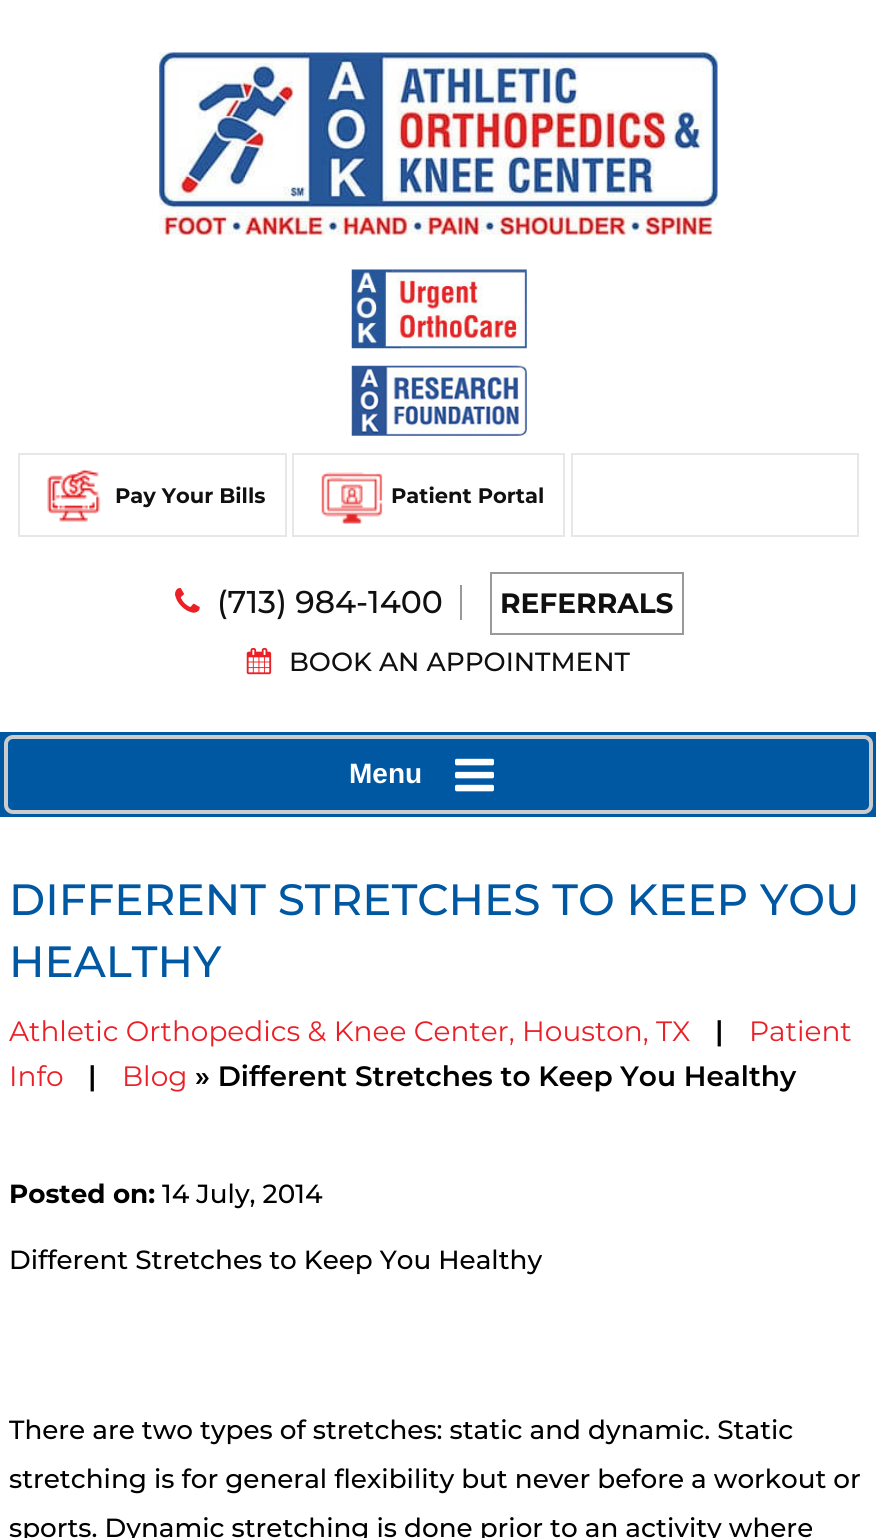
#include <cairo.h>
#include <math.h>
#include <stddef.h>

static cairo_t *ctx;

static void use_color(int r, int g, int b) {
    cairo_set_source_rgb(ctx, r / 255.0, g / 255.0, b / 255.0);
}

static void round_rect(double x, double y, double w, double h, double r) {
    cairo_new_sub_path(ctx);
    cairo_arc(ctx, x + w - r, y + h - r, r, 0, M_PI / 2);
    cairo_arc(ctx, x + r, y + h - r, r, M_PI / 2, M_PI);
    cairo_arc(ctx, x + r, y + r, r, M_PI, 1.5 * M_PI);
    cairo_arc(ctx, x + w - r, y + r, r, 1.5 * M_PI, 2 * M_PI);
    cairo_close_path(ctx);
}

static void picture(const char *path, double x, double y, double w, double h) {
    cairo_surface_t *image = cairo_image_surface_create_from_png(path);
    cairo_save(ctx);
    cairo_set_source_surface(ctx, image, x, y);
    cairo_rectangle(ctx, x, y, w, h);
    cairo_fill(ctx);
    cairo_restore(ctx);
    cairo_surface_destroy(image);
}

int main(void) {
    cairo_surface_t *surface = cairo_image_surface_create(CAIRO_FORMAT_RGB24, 876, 1538);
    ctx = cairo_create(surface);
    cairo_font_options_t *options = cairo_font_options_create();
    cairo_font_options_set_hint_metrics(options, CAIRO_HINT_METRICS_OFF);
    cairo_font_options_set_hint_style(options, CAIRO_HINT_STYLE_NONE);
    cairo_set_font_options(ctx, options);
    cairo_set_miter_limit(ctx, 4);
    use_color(255, 255, 255);
    cairo_paint(ctx);
    picture("img1.png", 159, 52, 559, 183);
    picture("img2.png", 351, 269, 176, 80);
    picture("img3.png", 351, 365, 176, 71);
    cairo_rectangle(ctx, 19, 454, 267, 82);
    use_color(231, 231, 231);
    cairo_stroke(ctx);
    picture("img4.png", 47, 469, 54, 53);
    cairo_select_font_face(ctx, "Montserrat", CAIRO_FONT_SLANT_NORMAL, CAIRO_FONT_WEIGHT_BOLD);
    cairo_set_font_size(ctx, 21);
    use_color(16, 16, 16);
    cairo_move_to(ctx, 115, 503);
    cairo_show_text(ctx, "Pay Your Bills");
    cairo_rectangle(ctx, 293, 454, 271, 82);
    use_color(231, 231, 231);
    cairo_stroke(ctx);
    picture("img5.png", 321, 472, 62, 52);
    use_color(16, 16, 16);
    cairo_move_to(ctx, 391, 503);
    cairo_show_text(ctx, "Patient Portal");
    cairo_rectangle(ctx, 572, 454, 286, 82);
    use_color(231, 231, 231);
    cairo_stroke(ctx);
    picture("img6.png", 175, 588, 25, 25);
    use_color(153, 153, 153);
    cairo_rectangle(ctx, 460, 585, 2, 35);
    cairo_fill(ctx);
    cairo_select_font_face(ctx, "Montserrat Medium", CAIRO_FONT_SLANT_NORMAL, CAIRO_FONT_WEIGHT_NORMAL);
    cairo_set_font_size(ctx, 31.5);
    use_color(16, 16, 16);
    cairo_move_to(ctx, 217, 613);
    cairo_show_text(ctx, "(713) 984-1400");
    cairo_rectangle(ctx, 491, 573, 192, 61);
    use_color(153, 153, 153);
    cairo_stroke(ctx);
    cairo_select_font_face(ctx, "Montserrat", CAIRO_FONT_SLANT_NORMAL, CAIRO_FONT_WEIGHT_BOLD);
    cairo_set_font_size(ctx, 28);
    use_color(16, 16, 16);
    cairo_move_to(ctx, 500, 613);
    cairo_show_text(ctx, "REFERRALS");
    picture("img7.png", 246, 647, 26, 28);
    cairo_select_font_face(ctx, "Montserrat Medium", CAIRO_FONT_SLANT_NORMAL, CAIRO_FONT_WEIGHT_NORMAL);
    cairo_set_font_size(ctx, 26.25);
    cairo_move_to(ctx, 289, 671);
    cairo_show_text(ctx, "BOOK AN APPOINTMENT");
    use_color(0, 88, 163);
    cairo_rectangle(ctx, 0, 732, 876, 85);
    cairo_fill(ctx);
    round_rect(6, 737, 865, 75, 7);
    use_color(204, 204, 204);
    cairo_set_line_width(ctx, 4);
    cairo_stroke(ctx);
    cairo_select_font_face(ctx, "Liberation Sans", CAIRO_FONT_SLANT_NORMAL, CAIRO_FONT_WEIGHT_BOLD);
    cairo_set_font_size(ctx, 28);
    use_color(255, 255, 255);
    cairo_move_to(ctx, 349, 783);
    cairo_show_text(ctx, "Menu");
    picture("img8.png", 455, 758, 39, 34);
    cairo_select_font_face(ctx, "Montserrat Medium", CAIRO_FONT_SLANT_NORMAL, CAIRO_FONT_WEIGHT_NORMAL);
    cairo_set_font_size(ctx, 43.75);
    use_color(0, 88, 163);
    cairo_move_to(ctx, 9, 915);
    cairo_show_text(ctx, "DIFFERENT STRETCHES TO KEEP YOU");
    cairo_move_to(ctx, 9, 977);
    cairo_show_text(ctx, "HEALTHY");
    cairo_select_font_face(ctx, "Montserrat", CAIRO_FONT_SLANT_NORMAL, CAIRO_FONT_WEIGHT_NORMAL);
    cairo_set_font_size(ctx, 28);
    use_color(235, 32, 39);
    cairo_move_to(ctx, 9, 1041);
    cairo_show_text(ctx, "Athletic Orthopedics & Knee Center, Houston, TX");
    cairo_select_font_face(ctx, "Montserrat SemiBold", CAIRO_FONT_SLANT_NORMAL, CAIRO_FONT_WEIGHT_NORMAL);
    use_color(0, 0, 0);
    cairo_move_to(ctx, 715, 1041);
    cairo_show_text(ctx, "|");
    cairo_select_font_face(ctx, "Montserrat", CAIRO_FONT_SLANT_NORMAL, CAIRO_FONT_WEIGHT_NORMAL);
    use_color(235, 32, 39);
    cairo_move_to(ctx, 749, 1041);
    cairo_show_text(ctx, "Patient");
    cairo_move_to(ctx, 9, 1086);
    cairo_show_text(ctx, "Info");
    cairo_select_font_face(ctx, "Montserrat SemiBold", CAIRO_FONT_SLANT_NORMAL, CAIRO_FONT_WEIGHT_NORMAL);
    use_color(0, 0, 0);
    cairo_move_to(ctx, 88, 1086);
    cairo_show_text(ctx, "|");
    cairo_select_font_face(ctx, "Montserrat", CAIRO_FONT_SLANT_NORMAL, CAIRO_FONT_WEIGHT_NORMAL);
    use_color(235, 32, 39);
    cairo_move_to(ctx, 122, 1086);
    cairo_show_text(ctx, "Blog");
    cairo_select_font_face(ctx, "Montserrat SemiBold", CAIRO_FONT_SLANT_NORMAL, CAIRO_FONT_WEIGHT_NORMAL);
    use_color(0, 0, 0);
    cairo_move_to(ctx, 195, 1086);
    cairo_show_text(ctx, "» Different Stretches to Keep You Healthy");
    cairo_select_font_face(ctx, "Montserrat", CAIRO_FONT_SLANT_NORMAL, CAIRO_FONT_WEIGHT_BOLD);
    cairo_set_font_size(ctx, 26.25);
    cairo_move_to(ctx, 9, 1203);
    cairo_show_text(ctx, "Posted on:");
    cairo_select_font_face(ctx, "Montserrat Medium", CAIRO_FONT_SLANT_NORMAL, CAIRO_FONT_WEIGHT_NORMAL);
    cairo_move_to(ctx, 162, 1203);
    cairo_show_text(ctx, "14 July, 2014");
    cairo_move_to(ctx, 9, 1269);
    cairo_show_text(ctx, "Different Stretches to Keep You Healthy");
    cairo_move_to(ctx, 9, 1439);
    cairo_show_text(ctx, "There are two types of stretches: static and dynamic. Static");
    cairo_move_to(ctx, 9, 1488);
    cairo_show_text(ctx, "stretching is for general flexibility but never before a workout or");
    cairo_move_to(ctx, 9, 1537);
    cairo_show_text(ctx, "sports. Dynamic stretching is done prior to an activity where");
    cairo_surface_write_to_png(surface, "result.png");
    cairo_font_options_destroy(options);
    cairo_destroy(ctx);
    cairo_surface_destroy(surface);
    return 0;
}
